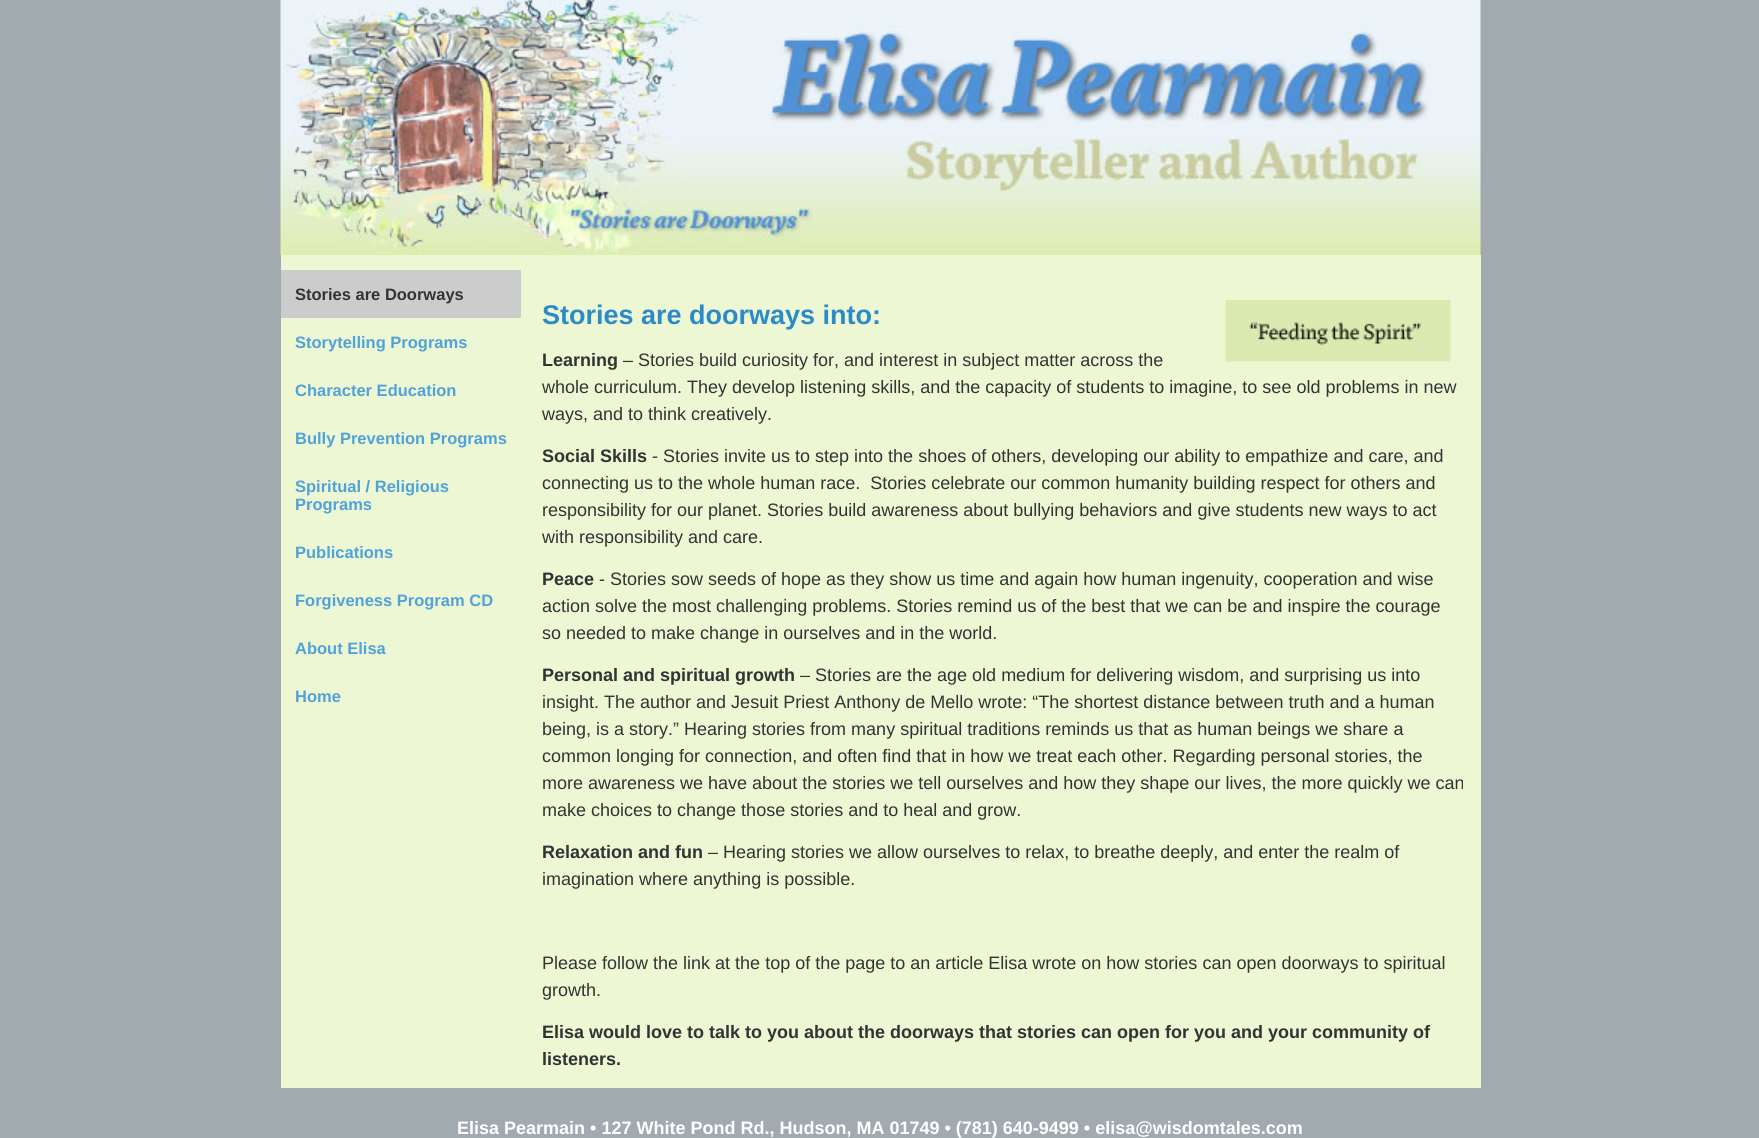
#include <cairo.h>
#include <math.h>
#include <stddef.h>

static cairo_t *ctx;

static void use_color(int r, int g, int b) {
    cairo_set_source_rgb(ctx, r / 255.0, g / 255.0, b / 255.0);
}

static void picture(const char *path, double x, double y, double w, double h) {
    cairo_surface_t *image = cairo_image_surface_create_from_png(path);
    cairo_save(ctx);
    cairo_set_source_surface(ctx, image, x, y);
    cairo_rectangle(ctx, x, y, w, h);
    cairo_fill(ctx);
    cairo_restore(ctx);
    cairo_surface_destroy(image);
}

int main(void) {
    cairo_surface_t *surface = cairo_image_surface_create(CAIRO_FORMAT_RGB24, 1759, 1138);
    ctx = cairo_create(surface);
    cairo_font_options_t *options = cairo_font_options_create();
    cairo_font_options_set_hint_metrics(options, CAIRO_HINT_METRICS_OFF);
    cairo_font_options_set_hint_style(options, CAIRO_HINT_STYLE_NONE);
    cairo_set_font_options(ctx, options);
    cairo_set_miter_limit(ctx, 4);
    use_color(160, 170, 175);
    cairo_paint(ctx);
    picture("img1.png", 280, 0, 1201, 255);
    use_color(237, 247, 212);
    cairo_rectangle(ctx, 281, 255, 1200, 833);
    cairo_fill(ctx);
    use_color(204, 204, 204);
    cairo_rectangle(ctx, 281, 270, 240, 48);
    cairo_fill(ctx);
    cairo_select_font_face(ctx, "Liberation Sans", CAIRO_FONT_SLANT_NORMAL, CAIRO_FONT_WEIGHT_BOLD);
    cairo_set_font_size(ctx, 16.5);
    use_color(51, 51, 51);
    cairo_move_to(ctx, 295, 300);
    cairo_show_text(ctx, "Stories are Doorways");
    use_color(80, 162, 216);
    cairo_move_to(ctx, 295, 348);
    cairo_show_text(ctx, "Storytelling Programs");
    cairo_move_to(ctx, 295, 396);
    cairo_show_text(ctx, "Character Education");
    cairo_move_to(ctx, 295, 444);
    cairo_show_text(ctx, "Bully Prevention Programs");
    cairo_move_to(ctx, 295, 492);
    cairo_show_text(ctx, "Spiritual / Religious");
    cairo_move_to(ctx, 295, 510);
    cairo_show_text(ctx, "Programs");
    cairo_move_to(ctx, 295, 558);
    cairo_show_text(ctx, "Publications");
    cairo_move_to(ctx, 295, 606);
    cairo_show_text(ctx, "Forgiveness Program CD");
    cairo_move_to(ctx, 295, 654);
    cairo_show_text(ctx, "About Elisa");
    cairo_move_to(ctx, 295, 702);
    cairo_show_text(ctx, "Home");
    cairo_set_font_size(ctx, 27);
    use_color(42, 139, 200);
    cairo_move_to(ctx, 542, 324);
    cairo_show_text(ctx, "Stories are doorways into:");
    picture("img2.png", 1225, 300, 226, 62);
    cairo_set_font_size(ctx, 18);
    use_color(51, 51, 51);
    cairo_move_to(ctx, 542, 366);
    cairo_show_text(ctx, "Learning");
    cairo_select_font_face(ctx, "Liberation Sans", CAIRO_FONT_SLANT_NORMAL, CAIRO_FONT_WEIGHT_NORMAL);
    cairo_move_to(ctx, 623, 366);
    cairo_show_text(ctx, "– Stories build curiosity for, and interest in subject matter across the");
    cairo_move_to(ctx, 542, 393);
    cairo_show_text(ctx, "whole curriculum. They develop listening skills, and the capacity of students to imagine, to see old problems in new");
    cairo_move_to(ctx, 542, 420);
    cairo_show_text(ctx, "ways, and to think creatively.");
    cairo_select_font_face(ctx, "Liberation Sans", CAIRO_FONT_SLANT_NORMAL, CAIRO_FONT_WEIGHT_BOLD);
    cairo_move_to(ctx, 542, 462);
    cairo_show_text(ctx, "Social Skills");
    cairo_select_font_face(ctx, "Liberation Sans", CAIRO_FONT_SLANT_NORMAL, CAIRO_FONT_WEIGHT_NORMAL);
    cairo_move_to(ctx, 652, 462);
    cairo_show_text(ctx, "- Stories invite us to step into the shoes of others, developing our ability to empathize and care, and");
    cairo_move_to(ctx, 542, 489);
    cairo_show_text(ctx, "connecting us to the whole human race.  Stories celebrate our common humanity building respect for others and");
    cairo_move_to(ctx, 542, 516);
    cairo_show_text(ctx, "responsibility for our planet. Stories build awareness about bullying behaviors and give students new ways to act");
    cairo_move_to(ctx, 542, 543);
    cairo_show_text(ctx, "with responsibility and care.");
    cairo_select_font_face(ctx, "Liberation Sans", CAIRO_FONT_SLANT_NORMAL, CAIRO_FONT_WEIGHT_BOLD);
    cairo_move_to(ctx, 542, 585);
    cairo_show_text(ctx, "Peace");
    cairo_select_font_face(ctx, "Liberation Sans", CAIRO_FONT_SLANT_NORMAL, CAIRO_FONT_WEIGHT_NORMAL);
    cairo_move_to(ctx, 599, 585);
    cairo_show_text(ctx, "- Stories sow seeds of hope as they show us time and again how human ingenuity, cooperation and wise");
    cairo_move_to(ctx, 542, 612);
    cairo_show_text(ctx, "action solve the most challenging problems. Stories remind us of the best that we can be and inspire the courage");
    cairo_move_to(ctx, 542, 639);
    cairo_show_text(ctx, "so needed to make change in ourselves and in the world.");
    cairo_select_font_face(ctx, "Liberation Sans", CAIRO_FONT_SLANT_NORMAL, CAIRO_FONT_WEIGHT_BOLD);
    cairo_move_to(ctx, 542, 681);
    cairo_show_text(ctx, "Personal and spiritual growth");
    cairo_select_font_face(ctx, "Liberation Sans", CAIRO_FONT_SLANT_NORMAL, CAIRO_FONT_WEIGHT_NORMAL);
    cairo_move_to(ctx, 800, 681);
    cairo_show_text(ctx, "– Stories are the age old medium for delivering wisdom, and surprising us into");
    cairo_move_to(ctx, 542, 708);
    cairo_show_text(ctx, "insight. The author and Jesuit Priest Anthony de Mello wrote: “The shortest distance between truth and a human");
    cairo_move_to(ctx, 542, 735);
    cairo_show_text(ctx, "being, is a story.” Hearing stories from many spiritual traditions reminds us that as human beings we share a");
    cairo_move_to(ctx, 542, 762);
    cairo_show_text(ctx, "common longing for connection, and often find that in how we treat each other. Regarding personal stories, the");
    cairo_move_to(ctx, 542, 789);
    cairo_show_text(ctx, "more awareness we have about the stories we tell ourselves and how they shape our lives, the more quickly we can");
    cairo_move_to(ctx, 542, 816);
    cairo_show_text(ctx, "make choices to change those stories and to heal and grow.");
    cairo_select_font_face(ctx, "Liberation Sans", CAIRO_FONT_SLANT_NORMAL, CAIRO_FONT_WEIGHT_BOLD);
    cairo_move_to(ctx, 542, 858);
    cairo_show_text(ctx, "Relaxation and fun");
    cairo_select_font_face(ctx, "Liberation Sans", CAIRO_FONT_SLANT_NORMAL, CAIRO_FONT_WEIGHT_NORMAL);
    cairo_move_to(ctx, 708, 858);
    cairo_show_text(ctx, "– Hearing stories we allow ourselves to relax, to breathe deeply, and enter the realm of");
    cairo_move_to(ctx, 542, 885);
    cairo_show_text(ctx, "imagination where anything is possible.");
    cairo_move_to(ctx, 542, 969);
    cairo_show_text(ctx, "Please follow the link at the top of the page to an article Elisa wrote on how stories can open doorways to spiritual");
    cairo_move_to(ctx, 542, 996);
    cairo_show_text(ctx, "growth.");
    cairo_select_font_face(ctx, "Liberation Sans", CAIRO_FONT_SLANT_NORMAL, CAIRO_FONT_WEIGHT_BOLD);
    cairo_move_to(ctx, 542, 1038);
    cairo_show_text(ctx, "Elisa would love to talk to you about the doorways that stories can open for you and your community of");
    cairo_move_to(ctx, 542, 1065);
    cairo_show_text(ctx, "listeners.");
    use_color(255, 255, 255);
    cairo_move_to(ctx, 457, 1134);
    cairo_show_text(ctx, "Elisa Pearmain • 127 White Pond Rd., Hudson, MA 01749 • (781) 640-9499 • elisa@wisdomtales.com");
    cairo_surface_write_to_png(surface, "result.png");
    cairo_font_options_destroy(options);
    cairo_destroy(ctx);
    cairo_surface_destroy(surface);
    return 0;
}
